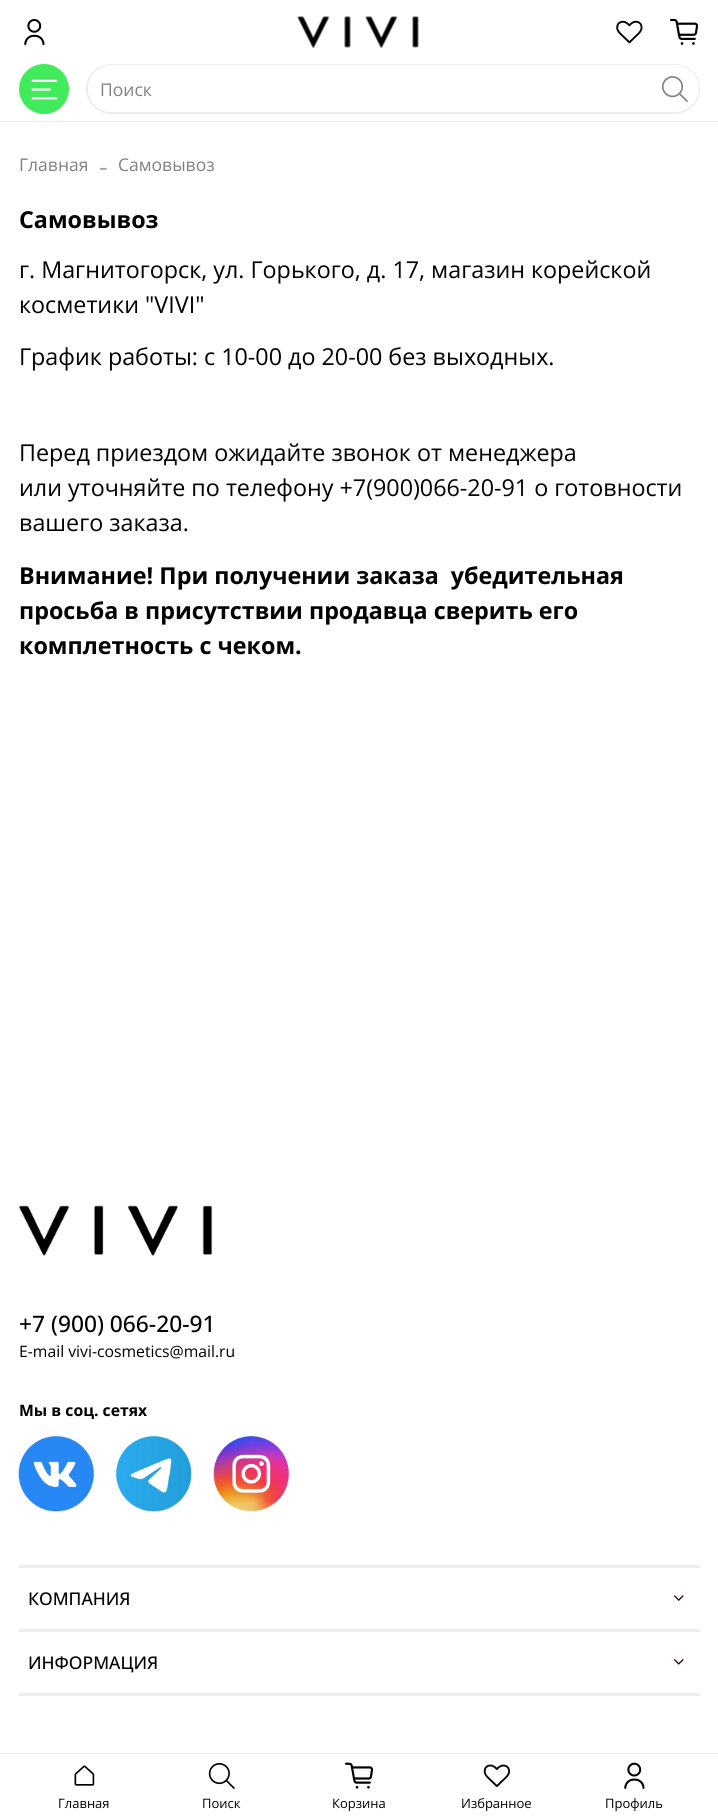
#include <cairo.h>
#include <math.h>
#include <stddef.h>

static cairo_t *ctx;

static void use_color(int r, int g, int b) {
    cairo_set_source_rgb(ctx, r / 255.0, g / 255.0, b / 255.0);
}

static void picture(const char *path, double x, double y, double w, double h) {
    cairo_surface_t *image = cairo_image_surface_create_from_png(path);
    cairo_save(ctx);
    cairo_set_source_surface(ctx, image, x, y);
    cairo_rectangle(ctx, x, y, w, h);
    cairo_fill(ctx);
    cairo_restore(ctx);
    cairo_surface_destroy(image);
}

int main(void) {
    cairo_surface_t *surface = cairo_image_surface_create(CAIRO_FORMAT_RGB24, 718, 1819);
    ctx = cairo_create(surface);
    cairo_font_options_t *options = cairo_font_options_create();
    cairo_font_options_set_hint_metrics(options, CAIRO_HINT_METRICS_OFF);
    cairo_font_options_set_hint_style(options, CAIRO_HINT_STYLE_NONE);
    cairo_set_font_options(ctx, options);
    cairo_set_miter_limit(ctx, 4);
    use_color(255, 255, 255);
    cairo_paint(ctx);
    use_color(237, 237, 237);
    cairo_rectangle(ctx, 0, 121, 718, 1);
    cairo_fill(ctx);
    picture("img1.png", 24, 18, 21, 28);
    picture("img2.png", 297, 16, 122, 32);
    picture("img3.png", 616, 20, 27, 24);
    picture("img4.png", 670, 18, 29, 27);
    use_color(65, 235, 92);
    cairo_arc(ctx, 44, 89, 25, 0, 2 * M_PI);
    cairo_fill(ctx);
    picture("img5.png", 31, 79, 27, 21);
    use_color(237, 237, 237);
    cairo_set_fill_rule(ctx, CAIRO_FILL_RULE_EVEN_ODD);
    cairo_new_path(ctx);
    cairo_move_to(ctx, 111, 64);
    cairo_line_to(ctx, 650, 64);
    cairo_line_to(ctx, 650, 114);
    cairo_line_to(ctx, 111, 114);
    cairo_curve_to(ctx, 97, 114, 86, 103, 86, 89);
    cairo_curve_to(ctx, 86, 75, 97, 64, 111, 64);
    cairo_close_path(ctx);
    cairo_move_to(ctx, 111, 65);
    cairo_line_to(ctx, 650, 65);
    cairo_line_to(ctx, 650, 112);
    cairo_line_to(ctx, 111, 112);
    cairo_curve_to(ctx, 98, 112, 88, 102, 88, 89);
    cairo_curve_to(ctx, 88, 76, 98, 65, 111, 65);
    cairo_close_path(ctx);
    cairo_fill(ctx);
    cairo_select_font_face(ctx, "Open Sans", CAIRO_FONT_SLANT_NORMAL, CAIRO_FONT_WEIGHT_NORMAL);
    cairo_set_font_size(ctx, 17.5);
    use_color(128, 128, 128);
    cairo_move_to(ctx, 100, 96);
    cairo_show_text(ctx, "Поиск");
    use_color(237, 237, 237);
    cairo_new_path(ctx);
    cairo_move_to(ctx, 650, 64);
    cairo_line_to(ctx, 675, 64);
    cairo_curve_to(ctx, 689, 64, 700, 75, 700, 89);
    cairo_curve_to(ctx, 700, 103, 689, 114, 675, 114);
    cairo_line_to(ctx, 650, 114);
    cairo_close_path(ctx);
    cairo_move_to(ctx, 650, 65);
    cairo_line_to(ctx, 675, 65);
    cairo_curve_to(ctx, 688, 65, 699, 76, 699, 89);
    cairo_curve_to(ctx, 699, 102, 688, 112, 675, 112);
    cairo_line_to(ctx, 650, 112);
    cairo_close_path(ctx);
    cairo_fill(ctx);
    picture("img6.png", 662, 76, 26, 26);
    use_color(128, 128, 128);
    cairo_move_to(ctx, 19, 171);
    cairo_show_text(ctx, "Главная");
    cairo_select_font_face(ctx, "Liberation Serif", CAIRO_FONT_SLANT_NORMAL, CAIRO_FONT_WEIGHT_NORMAL);
    cairo_set_font_size(ctx, 26);
    use_color(166, 166, 166);
    cairo_move_to(ctx, 99, 175);
    cairo_show_text(ctx, "-");
    cairo_select_font_face(ctx, "Open Sans", CAIRO_FONT_SLANT_NORMAL, CAIRO_FONT_WEIGHT_NORMAL);
    cairo_set_font_size(ctx, 17.5);
    use_color(128, 128, 128);
    cairo_move_to(ctx, 118, 171);
    cairo_show_text(ctx, "Самовывоз");
    cairo_select_font_face(ctx, "Open Sans", CAIRO_FONT_SLANT_NORMAL, CAIRO_FONT_WEIGHT_BOLD);
    cairo_set_font_size(ctx, 23.3);
    use_color(0, 0, 0);
    cairo_move_to(ctx, 19, 228);
    cairo_show_text(ctx, "Самовывоз");
    cairo_select_font_face(ctx, "Open Sans", CAIRO_FONT_SLANT_NORMAL, CAIRO_FONT_WEIGHT_NORMAL);
    cairo_move_to(ctx, 19, 278);
    cairo_show_text(ctx, "г. Магнитогорск, ул. Горького, д. 17, магазин корейской");
    cairo_move_to(ctx, 19, 313);
    cairo_show_text(ctx, "косметики \"VIVI\"");
    cairo_move_to(ctx, 19, 365);
    cairo_show_text(ctx, "График работы: с 10-00 до 20-00 без выходных.");
    cairo_move_to(ctx, 19, 461);
    cairo_show_text(ctx, "Перед приездом ожидайте звонок от менеджера");
    cairo_move_to(ctx, 19, 496);
    cairo_show_text(ctx, "или уточняйте по телефону +7(900)066-20-91 о готовности");
    cairo_move_to(ctx, 19, 531);
    cairo_show_text(ctx, "вашего заказа.");
    cairo_select_font_face(ctx, "Open Sans", CAIRO_FONT_SLANT_NORMAL, CAIRO_FONT_WEIGHT_BOLD);
    cairo_move_to(ctx, 19, 584);
    cairo_show_text(ctx, "Внимание! При получении заказа  убедительная");
    cairo_move_to(ctx, 19, 619);
    cairo_show_text(ctx, "просьба в присутствии продавца сверить его");
    cairo_move_to(ctx, 19, 654);
    cairo_show_text(ctx, "комплетность с чеком.");
    picture("img7.png", 19, 1205, 194, 51);
    cairo_select_font_face(ctx, "Open Sans Medium", CAIRO_FONT_SLANT_NORMAL, CAIRO_FONT_WEIGHT_NORMAL);
    cairo_set_font_size(ctx, 22.75);
    cairo_move_to(ctx, 19, 1332);
    cairo_show_text(ctx, "+7 (900) 066-20-91");
    cairo_select_font_face(ctx, "Open Sans", CAIRO_FONT_SLANT_NORMAL, CAIRO_FONT_WEIGHT_NORMAL);
    cairo_set_font_size(ctx, 15.75);
    cairo_move_to(ctx, 19, 1357);
    cairo_show_text(ctx, "E-mail vivi-cosmetics@mail.ru");
    cairo_select_font_face(ctx, "Open Sans", CAIRO_FONT_SLANT_NORMAL, CAIRO_FONT_WEIGHT_BOLD);
    cairo_move_to(ctx, 19, 1416);
    cairo_show_text(ctx, "Мы в соц. сетях");
    picture("img8.png", 18, 1436, 76, 76);
    picture("img9.png", 116, 1436, 76, 76);
    picture("img10.png", 213, 1436, 76, 76);
    use_color(237, 237, 237);
    cairo_rectangle(ctx, 19, 1565, 681, 3);
    cairo_fill(ctx);
    cairo_select_font_face(ctx, "Open Sans Medium", CAIRO_FONT_SLANT_NORMAL, CAIRO_FONT_WEIGHT_NORMAL);
    cairo_set_font_size(ctx, 17.5);
    use_color(0, 0, 0);
    cairo_move_to(ctx, 28, 1605);
    cairo_show_text(ctx, "КОМПАНИЯ");
    picture("img11.png", 673, 1595, 11, 6);
    use_color(237, 237, 237);
    cairo_rectangle(ctx, 19, 1629, 681, 3);
    cairo_fill(ctx);
    cairo_rectangle(ctx, 19, 1693, 681, 3);
    cairo_fill(ctx);
    use_color(0, 0, 0);
    cairo_move_to(ctx, 28, 1669);
    cairo_show_text(ctx, "ИНФОРМАЦИЯ");
    picture("img12.png", 673, 1659, 11, 6);
    use_color(237, 237, 237);
    cairo_rectangle(ctx, 0, 1753, 718, 1);
    cairo_fill(ctx);
    picture("img13.png", 74, 1765, 21, 21);
    cairo_select_font_face(ctx, "Open Sans", CAIRO_FONT_SLANT_NORMAL, CAIRO_FONT_WEIGHT_NORMAL);
    cairo_set_font_size(ctx, 13);
    use_color(0, 0, 0);
    cairo_move_to(ctx, 58, 1808);
    cairo_show_text(ctx, "Главная");
    picture("img14.png", 208, 1763, 27, 26);
    cairo_move_to(ctx, 202, 1808);
    cairo_show_text(ctx, "Поиск");
    picture("img15.png", 345, 1762, 29, 27);
    cairo_move_to(ctx, 332, 1808);
    cairo_show_text(ctx, "Корзина");
    picture("img16.png", 483, 1764, 27, 23);
    cairo_move_to(ctx, 461, 1808);
    cairo_show_text(ctx, "Избранное");
    picture("img17.png", 624, 1762, 21, 27);
    cairo_move_to(ctx, 605, 1808);
    cairo_show_text(ctx, "Профиль");
    cairo_surface_write_to_png(surface, "result.png");
    cairo_font_options_destroy(options);
    cairo_destroy(ctx);
    cairo_surface_destroy(surface);
    return 0;
}
